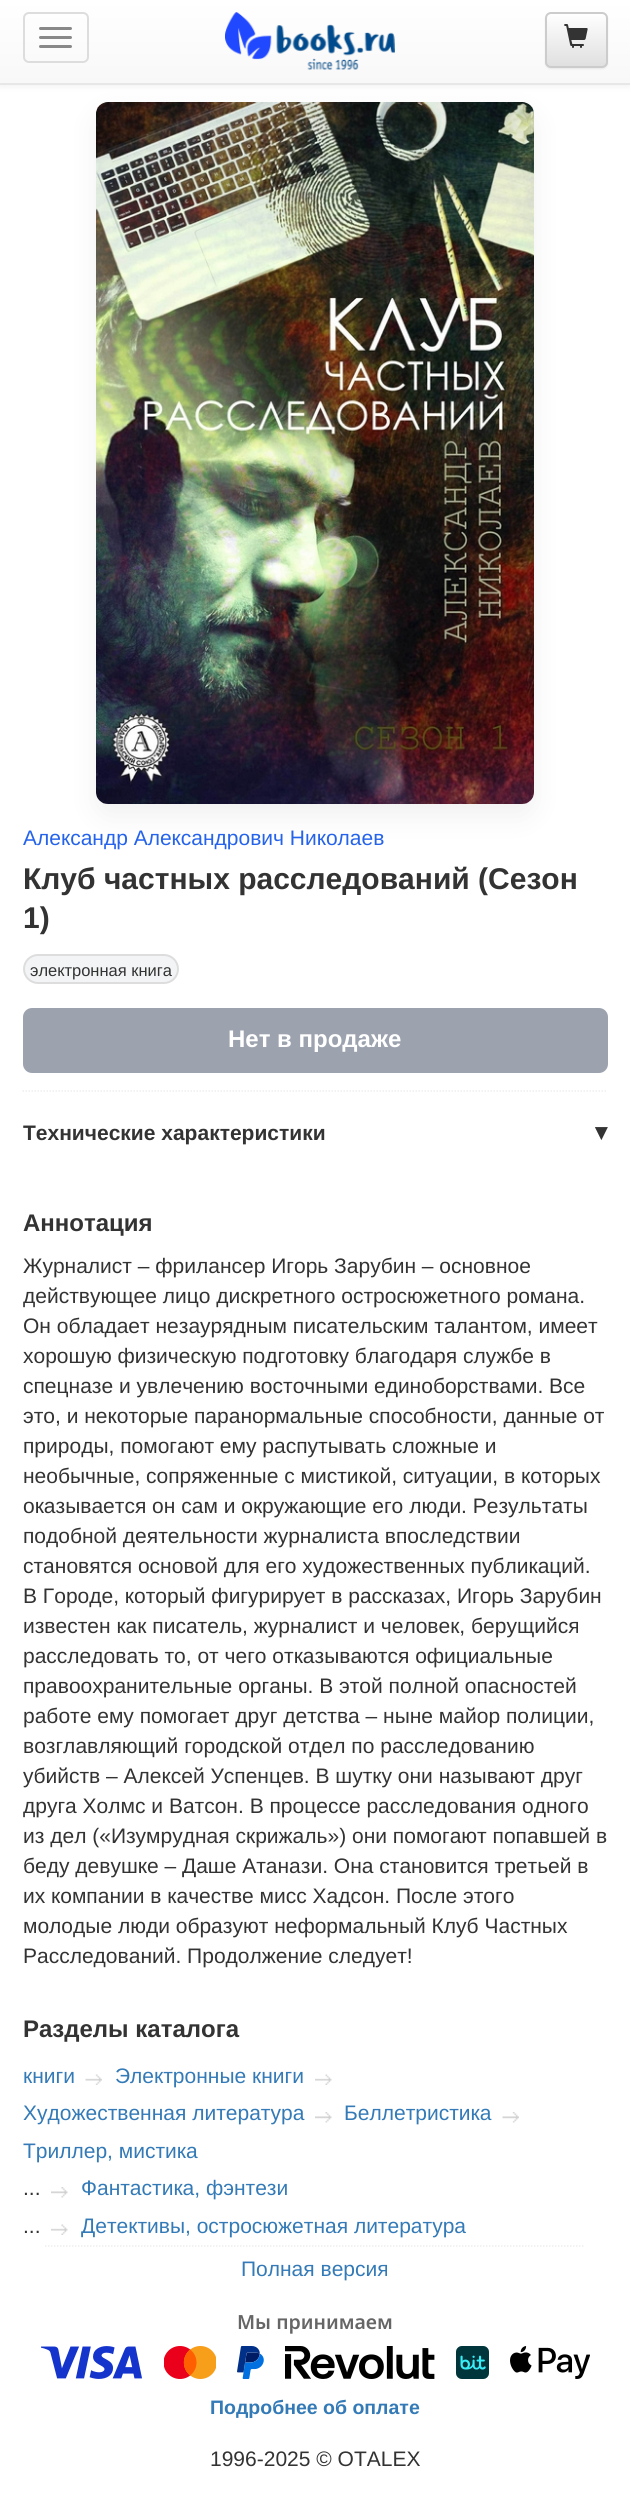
#include <cairo.h>
#include <math.h>
#include <stddef.h>

static cairo_t *ctx;

static void use_color(int r, int g, int b) {
    cairo_set_source_rgb(ctx, r / 255.0, g / 255.0, b / 255.0);
}

static void round_rect(double x, double y, double w, double h, double r) {
    cairo_new_sub_path(ctx);
    cairo_arc(ctx, x + w - r, y + h - r, r, 0, M_PI / 2);
    cairo_arc(ctx, x + r, y + h - r, r, M_PI / 2, M_PI);
    cairo_arc(ctx, x + r, y + r, r, M_PI, 1.5 * M_PI);
    cairo_arc(ctx, x + w - r, y + r, r, 1.5 * M_PI, 2 * M_PI);
    cairo_close_path(ctx);
}

static void shadow(double x, double y, double w, double h, double r, double blur, double alpha) {
    cairo_push_group_with_content(ctx, CAIRO_CONTENT_ALPHA);
    cairo_set_operator(ctx, CAIRO_OPERATOR_SOURCE);
    for (int i = 15; i >= -15 && fmin(w, h) + blur * i / 3 > 0; i -= 2) {
        double e = blur * i / 6;
        cairo_set_source_rgba(ctx, 0, 0, 0, alpha * erfc((i - 1) / 8.5) / 2);
        round_rect(x - e, y - e, w + 2 * e, h + 2 * e, fmax(0, fmin(r + e + blur * .6, fmin(w, h) / 2 + e)));
        cairo_fill(ctx);
    }
    cairo_pattern_t *soft = cairo_pop_group(ctx);
    cairo_mask(ctx, soft);
    cairo_pattern_destroy(soft);
}

static void picture(const char *path, double x, double y, double w, double h) {
    cairo_surface_t *image = cairo_image_surface_create_from_png(path);
    cairo_save(ctx);
    cairo_set_source_surface(ctx, image, x, y);
    cairo_rectangle(ctx, x, y, w, h);
    cairo_fill(ctx);
    cairo_restore(ctx);
    cairo_surface_destroy(image);
}

int main(void) {
    cairo_surface_t *surface = cairo_image_surface_create(CAIRO_FORMAT_RGB24, 630, 2502);
    ctx = cairo_create(surface);
    cairo_font_options_t *options = cairo_font_options_create();
    cairo_font_options_set_hint_metrics(options, CAIRO_HINT_METRICS_OFF);
    cairo_font_options_set_hint_style(options, CAIRO_HINT_STYLE_NONE);
    cairo_set_font_options(ctx, options);
    cairo_set_miter_limit(ctx, 4);
    cairo_pattern_t *gradient;
    use_color(255, 255, 255);
    cairo_paint(ctx);
    use_color(0, 0, 0);
    shadow(0, 2, 630, 84, 0, 4, 0.07);
    shadow(96, 114, 438, 702, 12, 15, 0.06);
    gradient = cairo_pattern_create_linear(315, 0, 315, 83);
    cairo_pattern_add_color_stop_rgba(gradient, 0, 1, 1, 1, 1);
    cairo_pattern_add_color_stop_rgba(gradient, 1, 0.973, 0.973, 0.973, 1);
    cairo_set_source(ctx, gradient);
    cairo_pattern_destroy(gradient);
    cairo_rectangle(ctx, 0, 0, 630, 83);
    cairo_fill(ctx);
    use_color(231, 231, 231);
    cairo_rectangle(ctx, 0, 83, 630, 2);
    cairo_fill(ctx);
    round_rect(24, 13, 64, 49, 5);
    use_color(221, 221, 221);
    cairo_stroke(ctx);
    use_color(136, 136, 136);
    round_rect(39, 27, 33, 3, 1.5);
    cairo_fill(ctx);
    round_rect(39, 36, 33, 3, 1.5);
    cairo_fill(ctx);
    round_rect(39, 45, 33, 3, 1.5);
    cairo_fill(ctx);
    picture("img1.png", 225, 12, 170, 58);
    use_color(0, 0, 0);
    shadow(545, 14, 63, 55, 6, 1, 0.07);
    cairo_save(ctx);
    round_rect(545, 12, 63, 56, 6);
    cairo_clip(ctx);
    gradient = cairo_pattern_create_linear(576, 13, 576, 66);
    cairo_pattern_add_color_stop_rgba(gradient, 0, 1, 1, 1, 1);
    cairo_pattern_add_color_stop_rgba(gradient, 1, 0.878, 0.878, 0.878, 1);
    cairo_set_source(ctx, gradient);
    cairo_pattern_destroy(gradient);
    cairo_rectangle(ctx, 545, 14, 63, 52);
    cairo_fill(ctx);
    cairo_restore(ctx);
    round_rect(546, 13, 61, 54, 5);
    use_color(204, 204, 204);
    cairo_stroke(ctx);
    picture("img2.png", 564, 24, 24, 24);
    picture("img3.png", 96, 102, 438, 702);
    cairo_select_font_face(ctx, "Liberation Sans", CAIRO_FONT_SLANT_NORMAL, CAIRO_FONT_WEIGHT_NORMAL);
    cairo_set_font_size(ctx, 21);
    use_color(37, 99, 235);
    cairo_move_to(ctx, 23, 845);
    cairo_show_text(ctx, "Александр Александрович Николаев");
    cairo_select_font_face(ctx, "Liberation Sans", CAIRO_FONT_SLANT_NORMAL, CAIRO_FONT_WEIGHT_BOLD);
    cairo_set_font_size(ctx, 30);
    use_color(51, 51, 51);
    cairo_move_to(ctx, 23, 889);
    cairo_show_text(ctx, "Клуб частных расследований (Сезон");
    cairo_move_to(ctx, 23, 928);
    cairo_show_text(ctx, "1)");
    use_color(243, 244, 246);
    round_rect(24, 955, 154, 28, 14);
    cairo_fill_preserve(ctx);
    use_color(221, 221, 221);
    cairo_stroke(ctx);
    cairo_select_font_face(ctx, "Liberation Sans", CAIRO_FONT_SLANT_NORMAL, CAIRO_FONT_WEIGHT_NORMAL);
    cairo_set_font_size(ctx, 16.5);
    use_color(51, 51, 51);
    cairo_move_to(ctx, 30, 976);
    cairo_show_text(ctx, "электронная книга");
    use_color(156, 163, 175);
    round_rect(23, 1008, 585, 65, 9);
    cairo_fill(ctx);
    cairo_select_font_face(ctx, "Liberation Sans", CAIRO_FONT_SLANT_NORMAL, CAIRO_FONT_WEIGHT_BOLD);
    cairo_set_font_size(ctx, 24);
    use_color(255, 255, 255);
    cairo_move_to(ctx, 228, 1047);
    cairo_show_text(ctx, "Нет в продаже");
    cairo_new_path(ctx);
    cairo_move_to(ctx, 22.5, 1091);
    cairo_line_to(ctx, 607.5, 1091);
    use_color(238, 238, 238);
    cairo_set_line_width(ctx, 1.5);
    cairo_set_dash(ctx, (double[]){1.5, 1.5}, 2, 0);
    cairo_stroke(ctx);
    cairo_set_font_size(ctx, 21);
    use_color(51, 51, 51);
    cairo_move_to(ctx, 23, 1140);
    cairo_show_text(ctx, "Технические характеристики");
    cairo_select_font_face(ctx, "DejaVu Sans", CAIRO_FONT_SLANT_NORMAL, CAIRO_FONT_WEIGHT_BOLD);
    cairo_set_font_size(ctx, 24);
    cairo_move_to(ctx, 595, 1140);
    cairo_show_text(ctx, "▾");
    cairo_select_font_face(ctx, "Liberation Sans", CAIRO_FONT_SLANT_NORMAL, CAIRO_FONT_WEIGHT_BOLD);
    cairo_move_to(ctx, 23, 1231);
    cairo_show_text(ctx, "Аннотация");
    cairo_select_font_face(ctx, "Liberation Sans", CAIRO_FONT_SLANT_NORMAL, CAIRO_FONT_WEIGHT_NORMAL);
    cairo_set_font_size(ctx, 21);
    cairo_move_to(ctx, 23, 1273);
    cairo_show_text(ctx, "Журналист – фрилансер Игорь Зарубин – основное");
    cairo_move_to(ctx, 23, 1303);
    cairo_show_text(ctx, "действующее лицо дискретного остросюжетного романа.");
    cairo_move_to(ctx, 23, 1333);
    cairo_show_text(ctx, "Он обладает незаурядным писательским талантом, имеет");
    cairo_move_to(ctx, 23, 1363);
    cairo_show_text(ctx, "хорошую физическую подготовку благодаря службе в");
    cairo_move_to(ctx, 23, 1393);
    cairo_show_text(ctx, "спецназе и увлечению восточными единоборствами. Все");
    cairo_move_to(ctx, 23, 1423);
    cairo_show_text(ctx, "это, и некоторые паранормальные способности, данные от");
    cairo_move_to(ctx, 23, 1453);
    cairo_show_text(ctx, "природы, помогают ему распутывать сложные и");
    cairo_move_to(ctx, 23, 1483);
    cairo_show_text(ctx, "необычные, сопряженные с мистикой, ситуации, в которых");
    cairo_move_to(ctx, 23, 1513);
    cairo_show_text(ctx, "оказывается он сам и окружающие его люди. Результаты");
    cairo_move_to(ctx, 23, 1543);
    cairo_show_text(ctx, "подобной деятельности журналиста впоследствии");
    cairo_move_to(ctx, 23, 1573);
    cairo_show_text(ctx, "становятся основой для его художественных публикаций.");
    cairo_move_to(ctx, 23, 1603);
    cairo_show_text(ctx, "В Городе, который фигурирует в рассказах, Игорь Зарубин");
    cairo_move_to(ctx, 23, 1633);
    cairo_show_text(ctx, "известен как писатель, журналист и человек, берущийся");
    cairo_move_to(ctx, 23, 1663);
    cairo_show_text(ctx, "расследовать то, от чего отказываются официальные");
    cairo_move_to(ctx, 23, 1693);
    cairo_show_text(ctx, "правоохранительные органы. В этой полной опасностей");
    cairo_move_to(ctx, 23, 1723);
    cairo_show_text(ctx, "работе ему помогает друг детства – ныне майор полиции,");
    cairo_move_to(ctx, 23, 1753);
    cairo_show_text(ctx, "возглавляющий городской отдел по расследованию");
    cairo_move_to(ctx, 23, 1783);
    cairo_show_text(ctx, "убийств – Алексей Успенцев. В шутку они называют друг");
    cairo_move_to(ctx, 23, 1813);
    cairo_show_text(ctx, "друга Холмс и Ватсон. В процессе расследования одного");
    cairo_move_to(ctx, 23, 1843);
    cairo_show_text(ctx, "из дел («Изумрудная скрижаль») они помогают попавшей в");
    cairo_move_to(ctx, 23, 1873);
    cairo_show_text(ctx, "беду девушке – Даше Атанази. Она становится третьей в");
    cairo_move_to(ctx, 23, 1903);
    cairo_show_text(ctx, "их компании в качестве мисс Хадсон. После этого");
    cairo_move_to(ctx, 23, 1933);
    cairo_show_text(ctx, "молодые люди образуют неформальный Клуб Частных");
    cairo_move_to(ctx, 23, 1963);
    cairo_show_text(ctx, "Расследований. Продолжение следует!");
    cairo_select_font_face(ctx, "Liberation Sans", CAIRO_FONT_SLANT_NORMAL, CAIRO_FONT_WEIGHT_BOLD);
    cairo_set_font_size(ctx, 24);
    cairo_move_to(ctx, 23, 2037);
    cairo_show_text(ctx, "Разделы каталога");
    picture("img4.png", 85, 2074, 17, 11);
    cairo_select_font_face(ctx, "Liberation Sans", CAIRO_FONT_SLANT_NORMAL, CAIRO_FONT_WEIGHT_NORMAL);
    cairo_set_font_size(ctx, 21);
    use_color(51, 122, 183);
    cairo_move_to(ctx, 23, 2083);
    cairo_show_text(ctx, "книги");
    picture("img5.png", 315, 2074, 17, 11);
    cairo_move_to(ctx, 115, 2083);
    cairo_show_text(ctx, "Электронные книги");
    picture("img6.png", 315, 2112, 17, 11);
    cairo_move_to(ctx, 23, 2120);
    cairo_show_text(ctx, "Художественная литература");
    picture("img7.png", 502, 2112, 17, 11);
    cairo_move_to(ctx, 344, 2120);
    cairo_show_text(ctx, "Беллетристика");
    cairo_move_to(ctx, 23, 2158);
    cairo_show_text(ctx, "Триллер, мистика");
    picture("img8.png", 51, 2187, 17, 11);
    use_color(51, 51, 51);
    cairo_move_to(ctx, 23, 2195);
    cairo_show_text(ctx, "...");
    use_color(51, 122, 183);
    cairo_move_to(ctx, 81, 2195);
    cairo_show_text(ctx, "Фантастика, фэнтези");
    picture("img9.png", 51, 2224, 17, 11);
    use_color(51, 51, 51);
    cairo_move_to(ctx, 23, 2233);
    cairo_show_text(ctx, "...");
    use_color(51, 122, 183);
    cairo_move_to(ctx, 81, 2233);
    cairo_show_text(ctx, "Детективы, остросюжетная литература");
    cairo_new_path(ctx);
    cairo_move_to(ctx, 45, 2246);
    cairo_line_to(ctx, 585, 2246);
    use_color(238, 238, 238);
    cairo_stroke(ctx);
    use_color(51, 122, 183);
    cairo_move_to(ctx, 241, 2276);
    cairo_show_text(ctx, "Полная версия");
    cairo_select_font_face(ctx, "Noto Sans SemiBold", CAIRO_FONT_SLANT_NORMAL, CAIRO_FONT_WEIGHT_NORMAL);
    cairo_set_font_size(ctx, 19.5);
    use_color(102, 102, 102);
    cairo_move_to(ctx, 237, 2329);
    cairo_show_text(ctx, "Мы принимаем");
    picture("img10.png", 41, 2346, 101, 33);
    picture("img11.png", 164, 2346, 52, 33);
    picture("img12.png", 237, 2346, 27, 33);
    picture("img13.png", 285, 2346, 150, 33);
    picture("img14.png", 456, 2346, 33, 33);
    picture("img15.png", 510, 2346, 80, 33);
    cairo_select_font_face(ctx, "Liberation Sans", CAIRO_FONT_SLANT_NORMAL, CAIRO_FONT_WEIGHT_BOLD);
    use_color(51, 122, 183);
    cairo_move_to(ctx, 210, 2414);
    cairo_show_text(ctx, "Подробнее об оплате");
    cairo_select_font_face(ctx, "Liberation Sans", CAIRO_FONT_SLANT_NORMAL, CAIRO_FONT_WEIGHT_NORMAL);
    cairo_set_font_size(ctx, 21);
    use_color(51, 51, 51);
    cairo_move_to(ctx, 210, 2466);
    cairo_show_text(ctx, "1996-2025 © OTALEX");
    cairo_surface_write_to_png(surface, "result.png");
    cairo_font_options_destroy(options);
    cairo_destroy(ctx);
    cairo_surface_destroy(surface);
    return 0;
}
